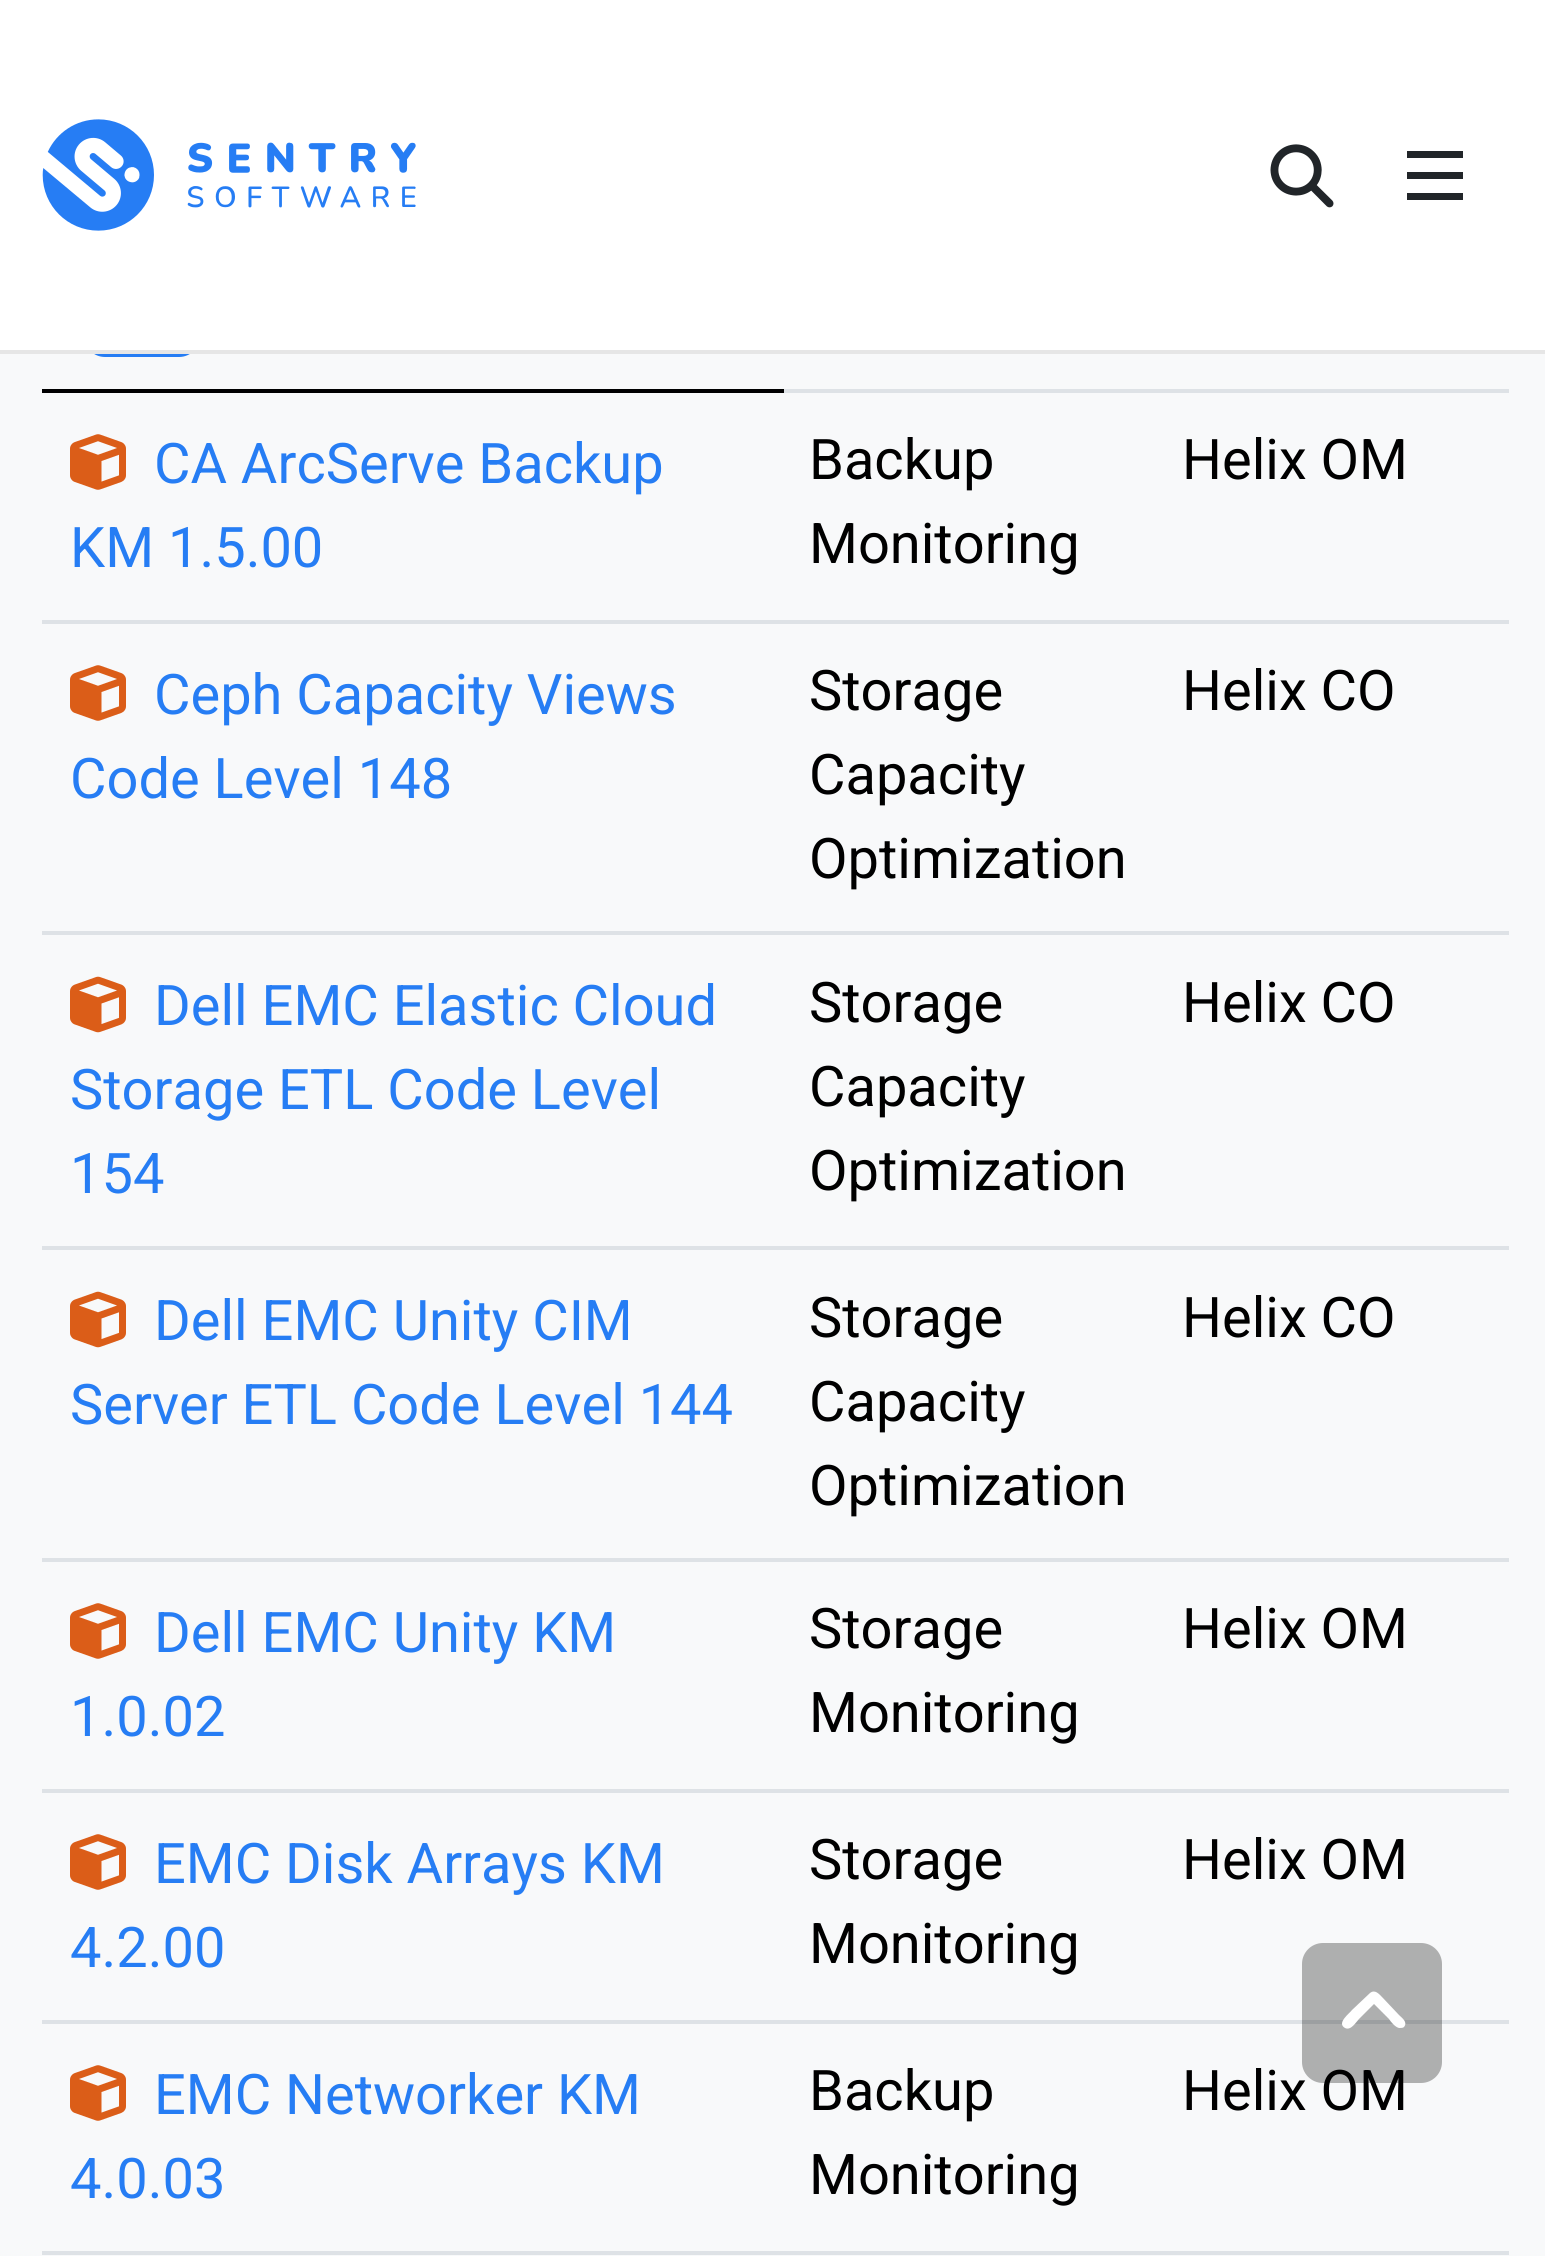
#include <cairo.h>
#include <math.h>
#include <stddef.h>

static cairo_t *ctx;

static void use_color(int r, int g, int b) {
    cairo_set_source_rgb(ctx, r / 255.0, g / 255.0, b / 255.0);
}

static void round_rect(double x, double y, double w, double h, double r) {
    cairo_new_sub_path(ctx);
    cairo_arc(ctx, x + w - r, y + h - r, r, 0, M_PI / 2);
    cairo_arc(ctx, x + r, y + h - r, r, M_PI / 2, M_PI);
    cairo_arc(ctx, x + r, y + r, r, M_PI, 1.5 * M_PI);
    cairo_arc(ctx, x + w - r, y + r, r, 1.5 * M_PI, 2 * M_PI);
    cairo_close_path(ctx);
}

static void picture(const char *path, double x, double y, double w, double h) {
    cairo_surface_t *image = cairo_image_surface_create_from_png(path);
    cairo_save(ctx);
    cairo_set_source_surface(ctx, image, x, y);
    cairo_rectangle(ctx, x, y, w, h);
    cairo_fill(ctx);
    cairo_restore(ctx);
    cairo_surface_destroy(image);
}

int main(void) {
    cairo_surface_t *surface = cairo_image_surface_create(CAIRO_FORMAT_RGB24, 1545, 2256);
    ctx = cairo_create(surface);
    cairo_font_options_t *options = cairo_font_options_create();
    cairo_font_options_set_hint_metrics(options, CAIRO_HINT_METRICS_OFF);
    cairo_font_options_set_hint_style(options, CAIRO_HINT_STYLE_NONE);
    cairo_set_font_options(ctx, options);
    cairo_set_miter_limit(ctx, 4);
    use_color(248, 249, 250);
    cairo_paint(ctx);
    use_color(38, 125, 244);
    round_rect(84, 277, 116, 80, 21);
    cairo_fill(ctx);
    use_color(255, 255, 255);
    cairo_rectangle(ctx, 0, 0, 1545, 350);
    cairo_fill(ctx);
    use_color(230, 230, 230);
    cairo_rectangle(ctx, 0, 350, 1545, 4);
    cairo_fill(ctx);
    picture("img1.png", 42, 119, 374, 112);
    picture("img2.png", 1270, 144, 64, 64);
    use_color(33, 37, 41);
    cairo_rectangle(ctx, 1407, 172, 56, 7);
    cairo_fill(ctx);
    cairo_rectangle(ctx, 1407, 151, 56, 7);
    cairo_fill(ctx);
    cairo_rectangle(ctx, 1407, 193, 56, 7);
    cairo_fill(ctx);
    use_color(222, 226, 230);
    cairo_rectangle(ctx, 781, 389, 728, 4);
    cairo_fill(ctx);
    use_color(0, 0, 0);
    cairo_rectangle(ctx, 42, 389, 742, 4);
    cairo_fill(ctx);
    picture("img3.png", 70, 434, 56, 56);
    cairo_select_font_face(ctx, "Roboto", CAIRO_FONT_SLANT_NORMAL, CAIRO_FONT_WEIGHT_NORMAL);
    cairo_set_font_size(ctx, 56);
    use_color(38, 125, 244);
    cairo_move_to(ctx, 154, 483);
    cairo_show_text(ctx, "CA ArcServe Backup");
    cairo_move_to(ctx, 70, 567);
    cairo_show_text(ctx, "KM 1.5.00");
    use_color(0, 0, 0);
    cairo_move_to(ctx, 809, 479);
    cairo_show_text(ctx, "Backup");
    cairo_move_to(ctx, 809, 563);
    cairo_show_text(ctx, "Monitoring");
    use_color(222, 226, 230);
    cairo_rectangle(ctx, 42, 620, 1467, 4);
    cairo_fill(ctx);
    use_color(0, 0, 0);
    cairo_move_to(ctx, 1182, 479);
    cairo_show_text(ctx, "Helix OM");
    picture("img3.png", 70, 665, 56, 56);
    use_color(38, 125, 244);
    cairo_move_to(ctx, 154, 714);
    cairo_show_text(ctx, "Ceph Capacity Views");
    cairo_move_to(ctx, 70, 798);
    cairo_show_text(ctx, "Code Level 148");
    use_color(0, 0, 0);
    cairo_move_to(ctx, 809, 710);
    cairo_show_text(ctx, "Storage");
    cairo_move_to(ctx, 809, 794);
    cairo_show_text(ctx, "Capacity");
    cairo_move_to(ctx, 809, 878);
    cairo_show_text(ctx, "Optimization");
    use_color(222, 226, 230);
    cairo_rectangle(ctx, 42, 931, 1467, 4);
    cairo_fill(ctx);
    use_color(0, 0, 0);
    cairo_move_to(ctx, 1182, 710);
    cairo_show_text(ctx, "Helix CO");
    picture("img4.png", 70, 976, 56, 57);
    use_color(38, 125, 244);
    cairo_move_to(ctx, 154, 1025);
    cairo_show_text(ctx, "Dell EMC Elastic Cloud");
    cairo_move_to(ctx, 70, 1109);
    cairo_show_text(ctx, "Storage ETL Code Level");
    cairo_move_to(ctx, 70, 1193);
    cairo_show_text(ctx, "154");
    use_color(0, 0, 0);
    cairo_move_to(ctx, 809, 1022);
    cairo_show_text(ctx, "Storage");
    cairo_move_to(ctx, 809, 1106);
    cairo_show_text(ctx, "Capacity");
    cairo_move_to(ctx, 809, 1190);
    cairo_show_text(ctx, "Optimization");
    use_color(222, 226, 230);
    cairo_rectangle(ctx, 42, 1246, 1467, 4);
    cairo_fill(ctx);
    use_color(0, 0, 0);
    cairo_move_to(ctx, 1182, 1022);
    cairo_show_text(ctx, "Helix CO");
    picture("img4.png", 70, 1291, 56, 57);
    use_color(38, 125, 244);
    cairo_move_to(ctx, 154, 1340);
    cairo_show_text(ctx, "Dell EMC Unity CIM");
    cairo_move_to(ctx, 70, 1424);
    cairo_show_text(ctx, "Server ETL Code Level 144");
    use_color(0, 0, 0);
    cairo_move_to(ctx, 809, 1337);
    cairo_show_text(ctx, "Storage");
    cairo_move_to(ctx, 809, 1421);
    cairo_show_text(ctx, "Capacity");
    cairo_move_to(ctx, 809, 1505);
    cairo_show_text(ctx, "Optimization");
    use_color(222, 226, 230);
    cairo_rectangle(ctx, 42, 1558, 1467, 4);
    cairo_fill(ctx);
    use_color(0, 0, 0);
    cairo_move_to(ctx, 1182, 1337);
    cairo_show_text(ctx, "Helix CO");
    picture("img3.png", 70, 1603, 56, 56);
    use_color(38, 125, 244);
    cairo_move_to(ctx, 154, 1652);
    cairo_show_text(ctx, "Dell EMC Unity KM");
    cairo_move_to(ctx, 70, 1736);
    cairo_show_text(ctx, "1.0.02");
    use_color(0, 0, 0);
    cairo_move_to(ctx, 809, 1648);
    cairo_show_text(ctx, "Storage");
    cairo_move_to(ctx, 809, 1732);
    cairo_show_text(ctx, "Monitoring");
    use_color(222, 226, 230);
    cairo_rectangle(ctx, 42, 1789, 1467, 4);
    cairo_fill(ctx);
    use_color(0, 0, 0);
    cairo_move_to(ctx, 1182, 1648);
    cairo_show_text(ctx, "Helix OM");
    picture("img3.png", 70, 1834, 56, 56);
    use_color(38, 125, 244);
    cairo_move_to(ctx, 154, 1883);
    cairo_show_text(ctx, "EMC Disk Arrays KM");
    cairo_move_to(ctx, 70, 1967);
    cairo_show_text(ctx, "4.2.00");
    use_color(0, 0, 0);
    cairo_move_to(ctx, 809, 1879);
    cairo_show_text(ctx, "Storage");
    cairo_move_to(ctx, 809, 1963);
    cairo_show_text(ctx, "Monitoring");
    use_color(222, 226, 230);
    cairo_rectangle(ctx, 42, 2020, 1467, 4);
    cairo_fill(ctx);
    use_color(0, 0, 0);
    cairo_move_to(ctx, 1182, 1879);
    cairo_show_text(ctx, "Helix OM");
    picture("img3.png", 70, 2065, 56, 56);
    use_color(38, 125, 244);
    cairo_move_to(ctx, 154, 2114);
    cairo_show_text(ctx, "EMC Networker KM");
    cairo_move_to(ctx, 70, 2198);
    cairo_show_text(ctx, "4.0.03");
    use_color(0, 0, 0);
    cairo_move_to(ctx, 809, 2110);
    cairo_show_text(ctx, "Backup");
    cairo_move_to(ctx, 809, 2194);
    cairo_show_text(ctx, "Monitoring");
    use_color(222, 226, 230);
    cairo_rectangle(ctx, 42, 2251, 1467, 4);
    cairo_fill(ctx);
    use_color(0, 0, 0);
    cairo_move_to(ctx, 1182, 2110);
    cairo_show_text(ctx, "Helix OM");
    cairo_set_source_rgba(ctx, 0, 0, 0, 0.3);
    round_rect(1302, 1943, 140, 140, 21);
    cairo_fill(ctx);
    use_color(255, 255, 255);
    cairo_new_path(ctx);
    cairo_move_to(ctx, 1370, 1993);
    cairo_curve_to(ctx, 1375, 1989, 1379, 1994, 1382, 1997);
    cairo_line_to(ctx, 1399, 2015);
    cairo_curve_to(ctx, 1402, 2018, 1408, 2022, 1404, 2027);
    cairo_curve_to(ctx, 1403, 2028, 1401, 2028, 1399, 2028);
    cairo_curve_to(ctx, 1395, 2027, 1391, 2022, 1389, 2019);
    cairo_line_to(ctx, 1374, 2004);
    cairo_line_to(ctx, 1359, 2019);
    cairo_curve_to(ctx, 1356, 2022, 1351, 2031, 1345, 2028);
    cairo_curve_to(ctx, 1336, 2023, 1350, 2013, 1352, 2010);
    cairo_close_path(ctx);
    cairo_fill(ctx);
    cairo_surface_write_to_png(surface, "result.png");
    cairo_font_options_destroy(options);
    cairo_destroy(ctx);
    cairo_surface_destroy(surface);
    return 0;
}
